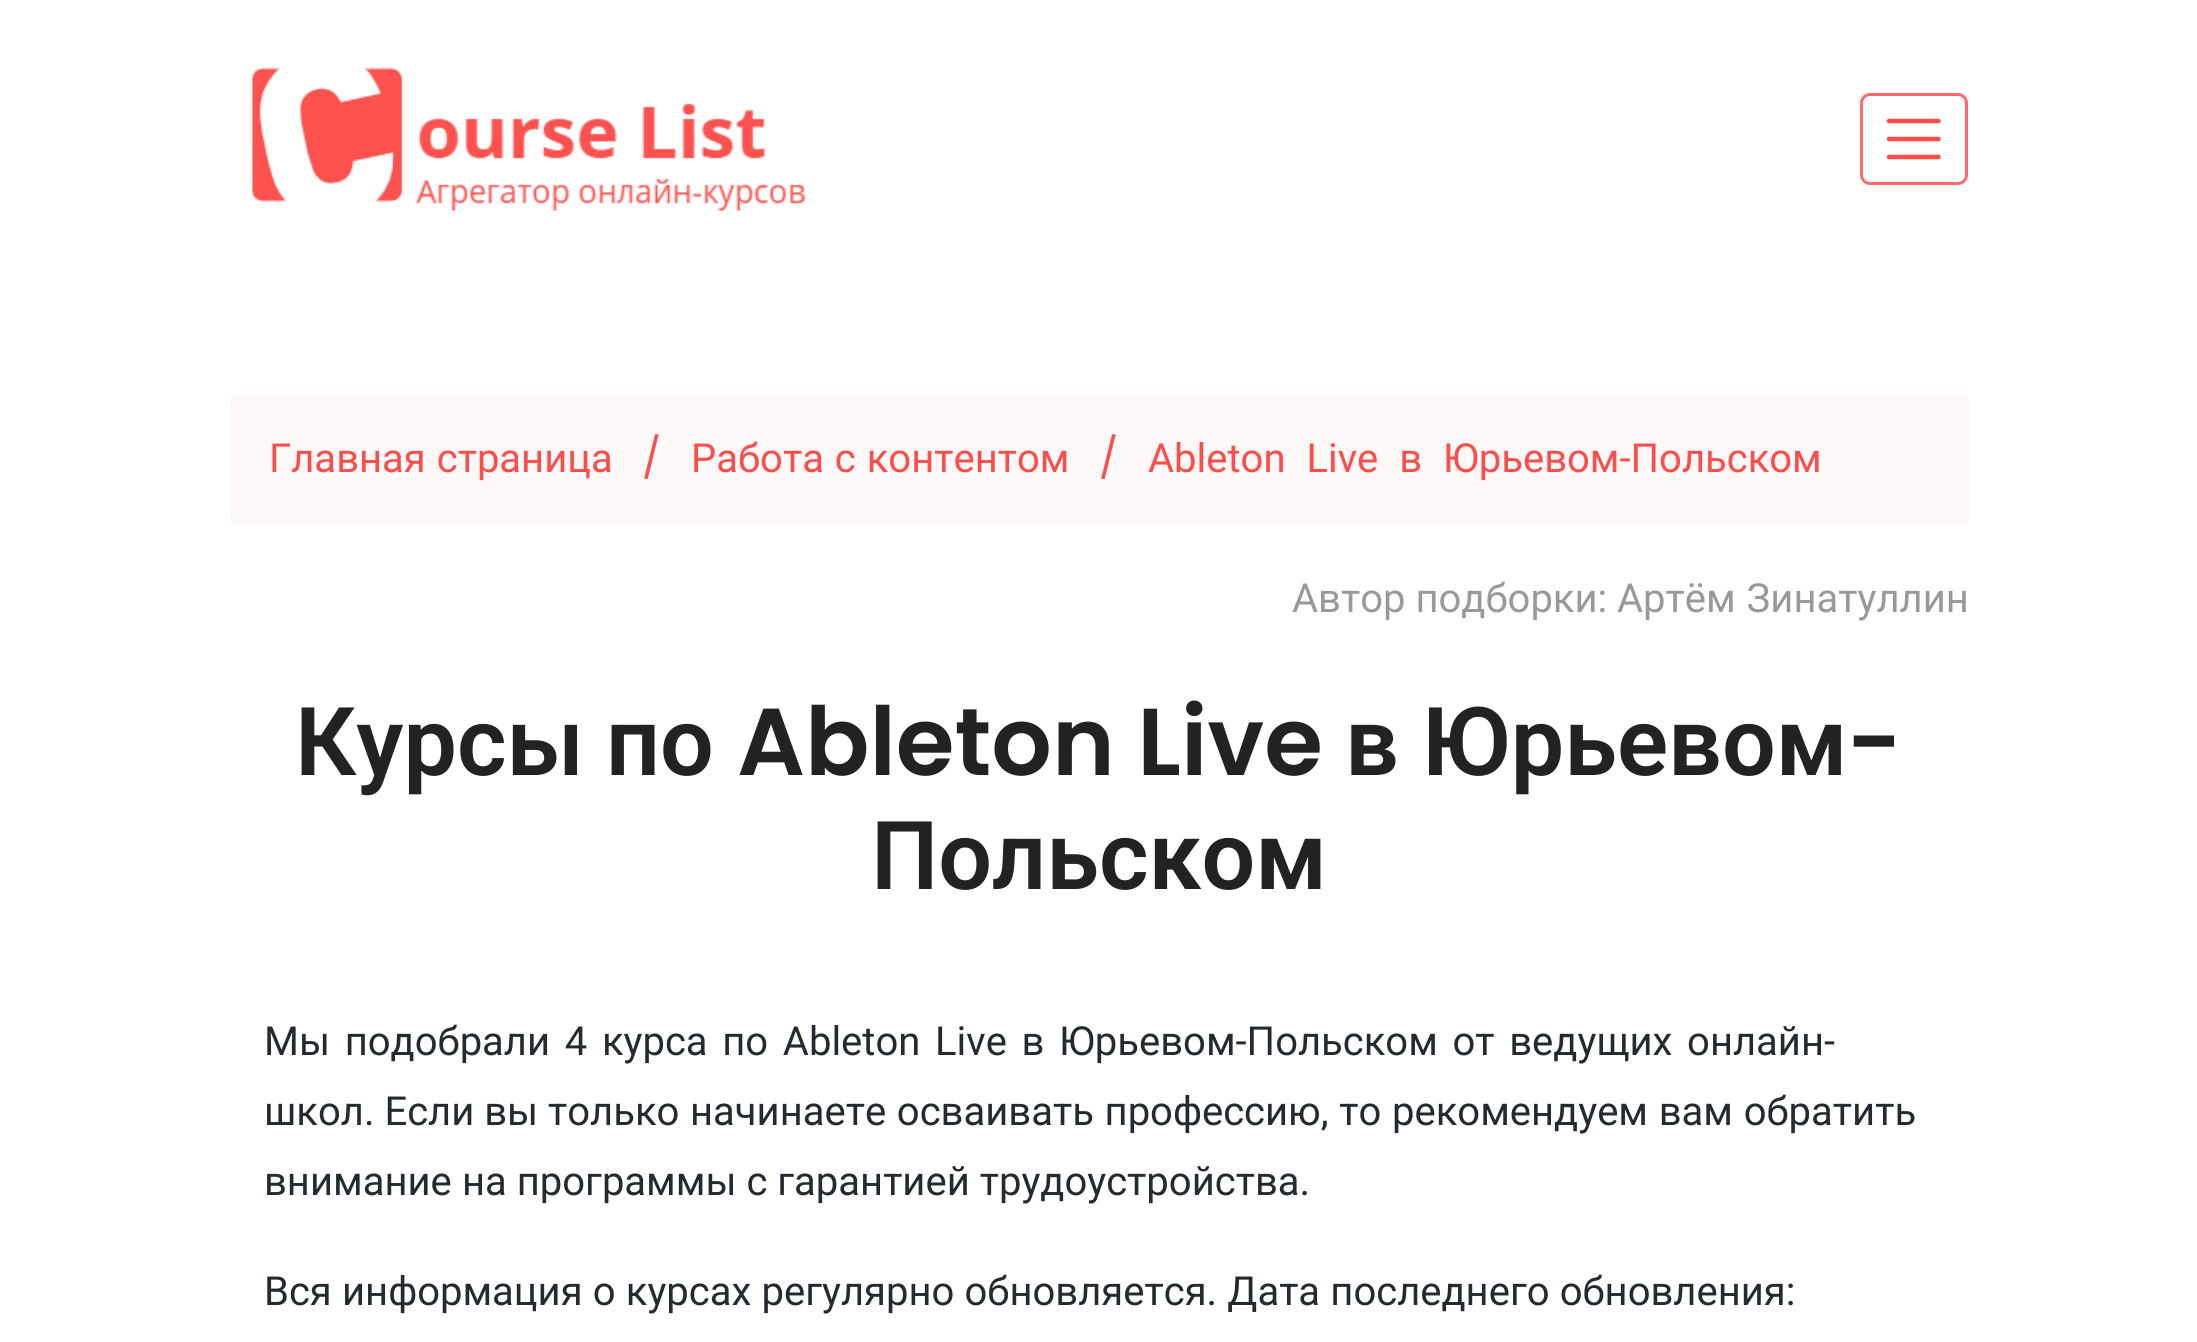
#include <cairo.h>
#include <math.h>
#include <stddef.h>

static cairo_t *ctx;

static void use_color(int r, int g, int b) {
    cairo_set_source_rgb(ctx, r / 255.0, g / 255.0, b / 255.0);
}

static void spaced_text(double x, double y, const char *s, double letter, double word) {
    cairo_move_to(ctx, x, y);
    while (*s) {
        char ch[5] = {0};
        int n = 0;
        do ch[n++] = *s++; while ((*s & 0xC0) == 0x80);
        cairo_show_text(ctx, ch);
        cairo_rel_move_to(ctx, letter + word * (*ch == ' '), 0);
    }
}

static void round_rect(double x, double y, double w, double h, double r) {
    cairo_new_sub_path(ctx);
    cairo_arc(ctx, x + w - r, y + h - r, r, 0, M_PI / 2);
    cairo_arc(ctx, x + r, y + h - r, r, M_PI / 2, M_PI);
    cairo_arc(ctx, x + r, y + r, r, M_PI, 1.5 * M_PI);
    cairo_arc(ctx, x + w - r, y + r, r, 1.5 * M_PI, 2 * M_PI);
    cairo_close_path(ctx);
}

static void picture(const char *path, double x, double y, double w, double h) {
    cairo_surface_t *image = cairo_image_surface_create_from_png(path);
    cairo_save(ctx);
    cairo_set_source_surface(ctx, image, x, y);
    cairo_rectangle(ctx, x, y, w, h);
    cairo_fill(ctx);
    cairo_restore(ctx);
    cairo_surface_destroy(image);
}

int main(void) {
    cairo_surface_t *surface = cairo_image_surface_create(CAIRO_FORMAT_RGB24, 2197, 1342);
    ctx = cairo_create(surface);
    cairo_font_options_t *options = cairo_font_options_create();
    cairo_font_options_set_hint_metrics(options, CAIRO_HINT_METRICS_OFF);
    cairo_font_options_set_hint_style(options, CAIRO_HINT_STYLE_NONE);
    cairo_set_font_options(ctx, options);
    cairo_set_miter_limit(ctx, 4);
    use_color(255, 255, 255);
    cairo_paint(ctx);
    picture("img1.png", 252, 67, 554, 144);
    round_rect(1861.5, 94.5, 105, 89, 8.5);
    use_color(255, 106, 106);
    cairo_set_line_width(ctx, 3);
    cairo_stroke(ctx);
    cairo_new_path(ctx);
    cairo_move_to(ctx, 1889, 121);
    cairo_line_to(ctx, 1938.5, 121);
    cairo_move_to(ctx, 1889, 139);
    cairo_line_to(ctx, 1938.5, 139);
    cairo_move_to(ctx, 1889, 157);
    cairo_line_to(ctx, 1938.5, 157);
    use_color(252, 77, 74);
    cairo_set_line_width(ctx, 4.5);
    cairo_set_line_cap(ctx, CAIRO_LINE_CAP_ROUND);
    cairo_stroke(ctx);
    use_color(255, 248, 248);
    round_rect(230, 395, 1740, 130, 10);
    cairo_fill(ctx);
    cairo_select_font_face(ctx, "Roboto", CAIRO_FONT_SLANT_NORMAL, CAIRO_FONT_WEIGHT_NORMAL);
    cairo_set_font_size(ctx, 40);
    use_color(252, 77, 74);
    spaced_text(269, 472, "Главная страница", 0, 1);
    cairo_select_font_face(ctx, "Poppins", CAIRO_FONT_SLANT_NORMAL, CAIRO_FONT_WEIGHT_NORMAL);
    cairo_move_to(ctx, 642, 472);
    cairo_show_text(ctx, "/");
    cairo_select_font_face(ctx, "Roboto", CAIRO_FONT_SLANT_NORMAL, CAIRO_FONT_WEIGHT_NORMAL);
    spaced_text(691, 472, "Работа с контентом", 0, 1);
    cairo_select_font_face(ctx, "Poppins", CAIRO_FONT_SLANT_NORMAL, CAIRO_FONT_WEIGHT_NORMAL);
    cairo_move_to(ctx, 1099, 472);
    cairo_show_text(ctx, "/");
    cairo_select_font_face(ctx, "Roboto", CAIRO_FONT_SLANT_NORMAL, CAIRO_FONT_WEIGHT_NORMAL);
    spaced_text(1148, 472, "Ableton Live в Юрьевом-Польском", 0, 11);
    use_color(153, 153, 153);
    cairo_move_to(ctx, 1292, 612);
    cairo_show_text(ctx, "Автор подборки:");
    spaced_text(1617, 612, "Артём Зинатуллин", 0, 1);
    cairo_select_font_face(ctx, "Roboto SemiBold", CAIRO_FONT_SLANT_NORMAL, CAIRO_FONT_WEIGHT_NORMAL);
    cairo_set_font_size(ctx, 95);
    use_color(34, 34, 34);
    cairo_move_to(ctx, 295, 775);
    cairo_show_text(ctx, "Курсы");
    cairo_move_to(ctx, 606, 775);
    cairo_show_text(ctx, "по");
    cairo_select_font_face(ctx, "Poppins SemiBold", CAIRO_FONT_SLANT_NORMAL, CAIRO_FONT_WEIGHT_NORMAL);
    cairo_move_to(ctx, 737, 775);
    cairo_show_text(ctx, "Ableton Live");
    cairo_select_font_face(ctx, "Roboto SemiBold", CAIRO_FONT_SLANT_NORMAL, CAIRO_FONT_WEIGHT_NORMAL);
    cairo_move_to(ctx, 1345, 775);
    cairo_show_text(ctx, "в");
    cairo_move_to(ctx, 1422, 775);
    cairo_show_text(ctx, "Юрьевом");
    cairo_select_font_face(ctx, "Poppins SemiBold", CAIRO_FONT_SLANT_NORMAL, CAIRO_FONT_WEIGHT_NORMAL);
    cairo_move_to(ctx, 1847, 775);
    cairo_show_text(ctx, "-");
    cairo_select_font_face(ctx, "Roboto SemiBold", CAIRO_FONT_SLANT_NORMAL, CAIRO_FONT_WEIGHT_NORMAL);
    cairo_move_to(ctx, 871, 889);
    cairo_show_text(ctx, "Польском");
    cairo_select_font_face(ctx, "Roboto", CAIRO_FONT_SLANT_NORMAL, CAIRO_FONT_WEIGHT_NORMAL);
    cairo_set_font_size(ctx, 40);
    use_color(35, 43, 47);
    spaced_text(264, 1055, "Мы подобрали 4 курса по Ableton Live в Юрьевом-Польском от ведущих онлайн-", 0, 4.75);
    cairo_move_to(ctx, 264, 1125);
    cairo_show_text(ctx, "школ. Если вы");
    spaced_text(548, 1125, "только начинаете осваивать профессию, то рекомендуем вам обратить", 0, 0.75);
    cairo_move_to(ctx, 264, 1195);
    cairo_show_text(ctx, "внимание");
    cairo_move_to(ctx, 462, 1195);
    cairo_show_text(ctx, "на программы с гарантией трудоустройства.");
    spaced_text(264, 1305, "Вся информация о курсах регулярно обновляется. Дата последнего обновления:", 0, 0.25);
    cairo_surface_write_to_png(surface, "result.png");
    cairo_font_options_destroy(options);
    cairo_destroy(ctx);
    cairo_surface_destroy(surface);
    return 0;
}
